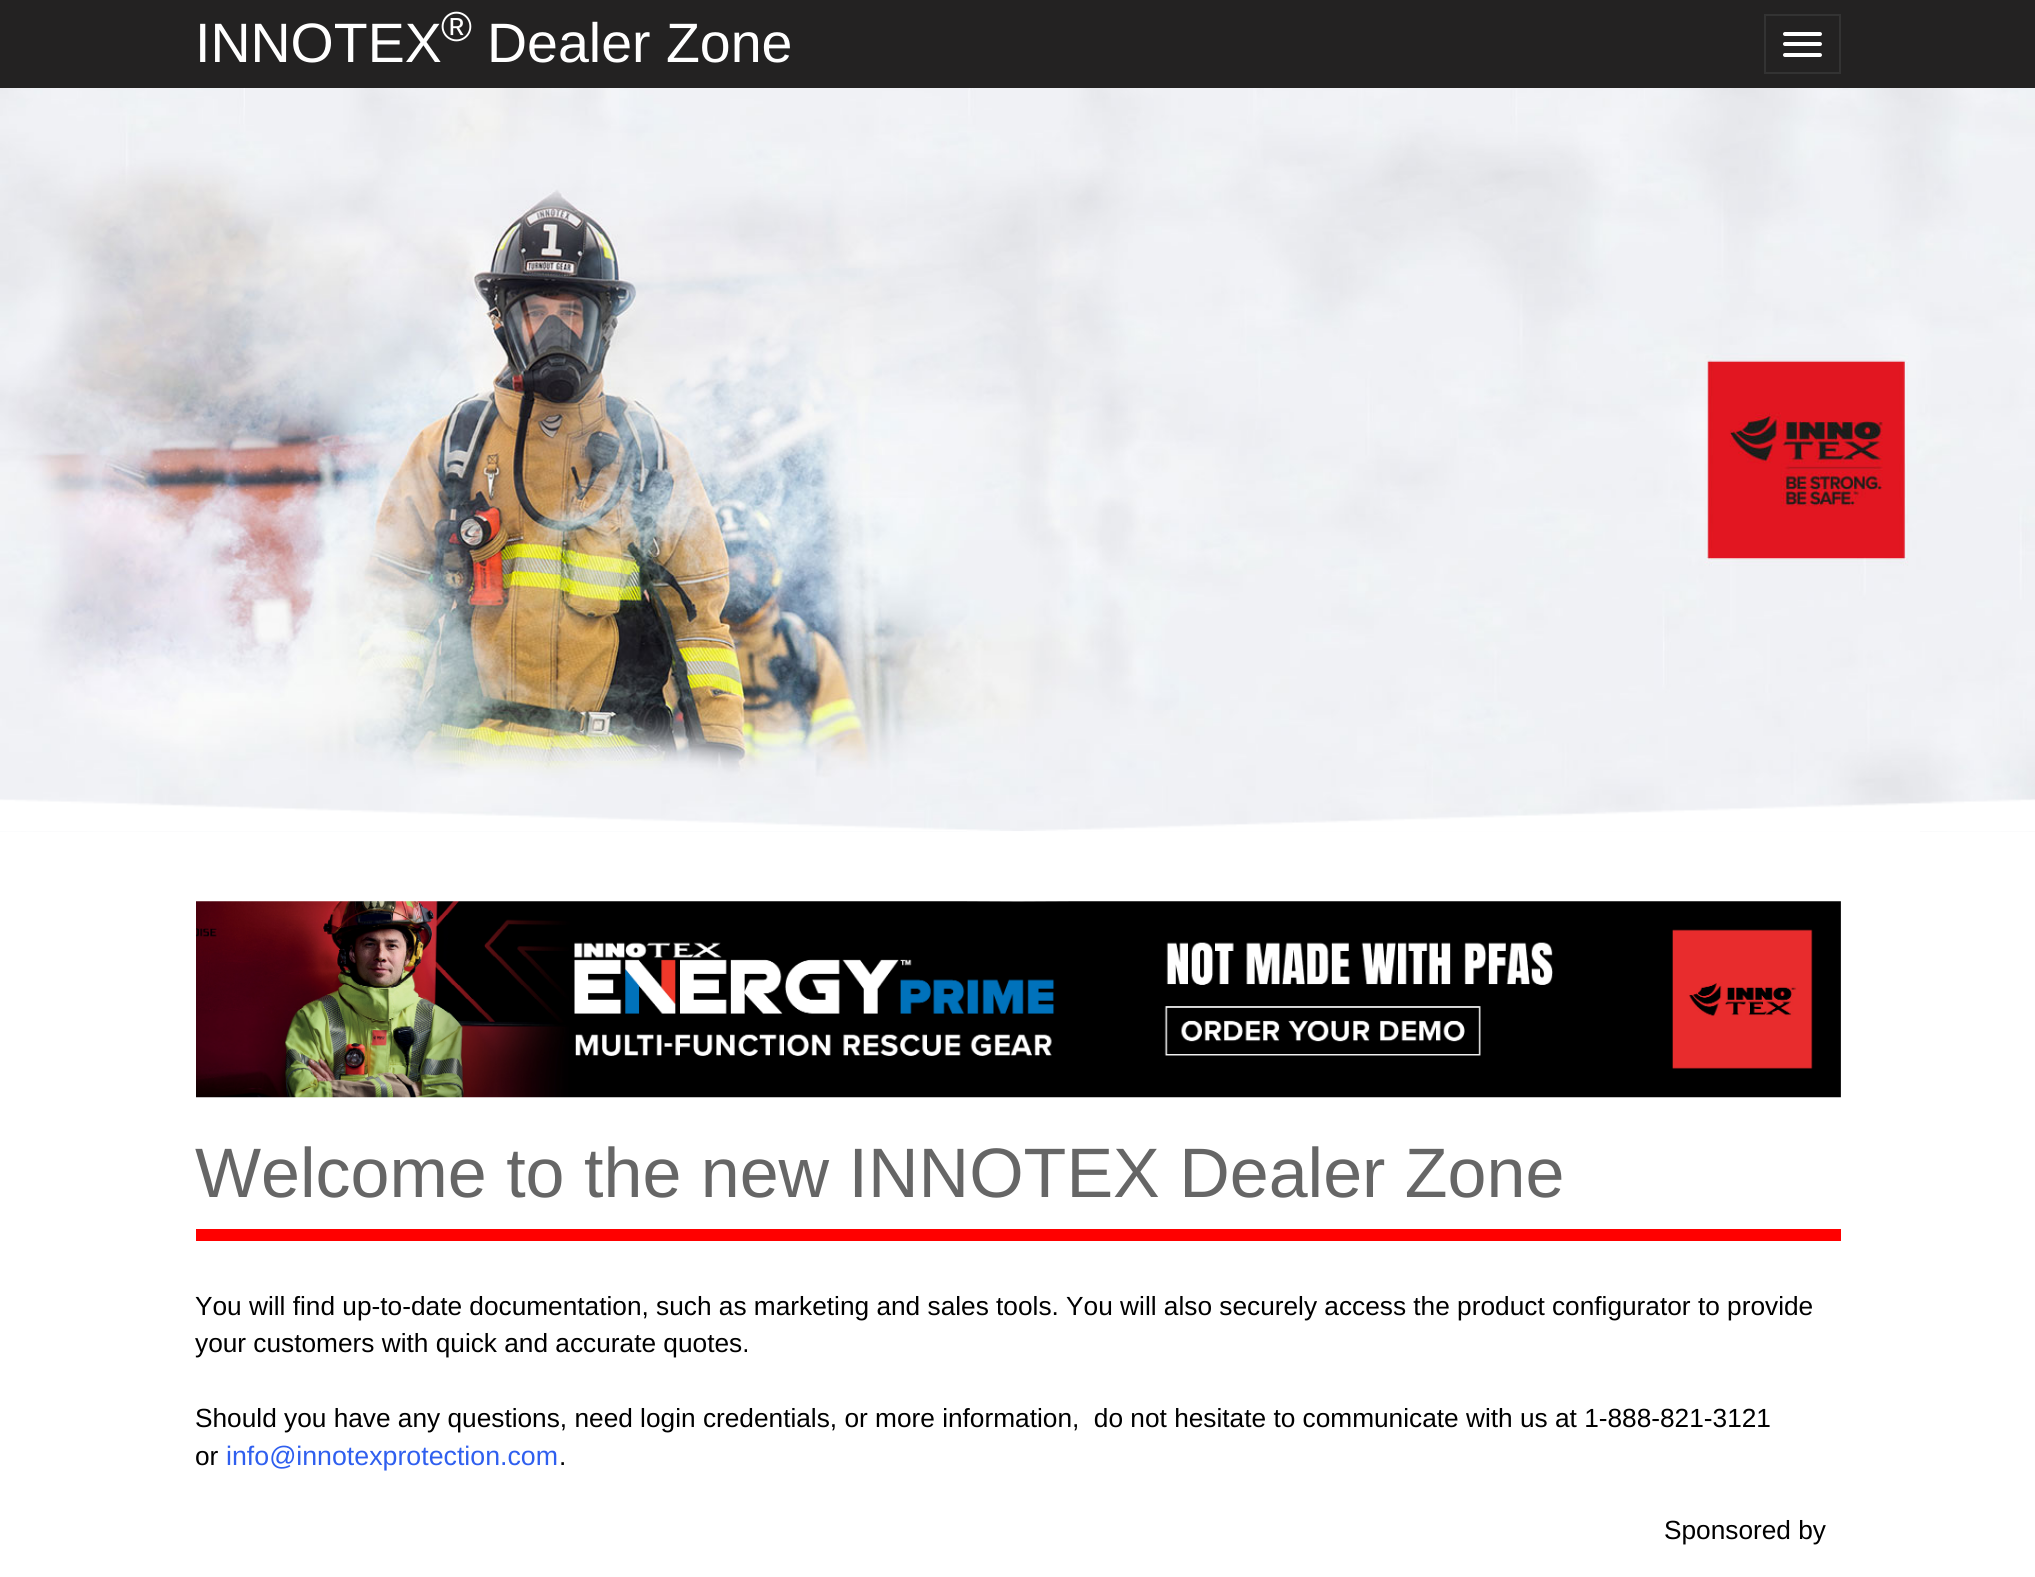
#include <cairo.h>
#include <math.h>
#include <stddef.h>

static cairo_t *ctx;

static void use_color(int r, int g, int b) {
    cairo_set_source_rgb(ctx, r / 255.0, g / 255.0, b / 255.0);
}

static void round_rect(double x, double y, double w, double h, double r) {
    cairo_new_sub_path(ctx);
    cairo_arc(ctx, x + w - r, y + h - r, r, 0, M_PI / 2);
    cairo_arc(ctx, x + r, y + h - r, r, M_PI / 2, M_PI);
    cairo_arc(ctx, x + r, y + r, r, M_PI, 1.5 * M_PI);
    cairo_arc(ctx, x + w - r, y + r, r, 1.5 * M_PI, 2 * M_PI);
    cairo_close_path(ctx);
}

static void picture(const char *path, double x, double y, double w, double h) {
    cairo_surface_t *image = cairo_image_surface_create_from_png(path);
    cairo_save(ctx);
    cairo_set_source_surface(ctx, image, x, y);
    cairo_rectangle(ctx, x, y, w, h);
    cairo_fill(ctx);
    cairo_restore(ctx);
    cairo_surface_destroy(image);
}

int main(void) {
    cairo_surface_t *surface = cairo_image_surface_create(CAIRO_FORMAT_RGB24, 2035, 1577);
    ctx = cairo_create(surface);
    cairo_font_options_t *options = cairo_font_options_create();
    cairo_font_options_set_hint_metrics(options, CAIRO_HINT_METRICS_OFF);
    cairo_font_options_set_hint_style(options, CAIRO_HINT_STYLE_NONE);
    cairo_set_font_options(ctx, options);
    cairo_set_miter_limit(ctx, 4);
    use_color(255, 255, 255);
    cairo_paint(ctx);
    use_color(35, 34, 34);
    cairo_rectangle(ctx, 0, 0, 2035, 88);
    cairo_fill(ctx);
    cairo_select_font_face(ctx, "Liberation Sans", CAIRO_FONT_SLANT_NORMAL, CAIRO_FONT_WEIGHT_NORMAL);
    cairo_set_font_size(ctx, 55.5);
    use_color(255, 255, 255);
    cairo_move_to(ctx, 195, 62);
    cairo_show_text(ctx, "INNOTEX");
    cairo_set_font_size(ctx, 42);
    cairo_move_to(ctx, 441, 41);
    cairo_show_text(ctx, "®");
    cairo_set_font_size(ctx, 55.5);
    cairo_move_to(ctx, 487, 62);
    cairo_show_text(ctx, "Dealer Zone");
    cairo_rectangle(ctx, 1765, 15, 75, 58);
    use_color(51, 51, 51);
    cairo_stroke(ctx);
    use_color(255, 255, 255);
    round_rect(1783, 32, 39, 4, 2);
    cairo_fill(ctx);
    round_rect(1783, 42, 39, 4, 2);
    cairo_fill(ctx);
    round_rect(1783, 53, 39, 4, 2);
    cairo_fill(ctx);
    picture("img1.png", 0, 88, 2035, 744);
    picture("img2.png", 0, 799, 2035, 32);
    picture("img4.png", 196, 901, 1645, 197);
    picture("img3.png", 967, 831, 953, 71);
    use_color(255, 0, 0);
    cairo_rectangle(ctx, 196, 1229, 1645, 12);
    cairo_fill(ctx);
    cairo_set_font_size(ctx, 70);
    use_color(102, 102, 102);
    cairo_move_to(ctx, 195, 1197);
    cairo_show_text(ctx, "Welcome to the new INNOTEX Dealer Zone");
    cairo_set_font_size(ctx, 26.25);
    use_color(0, 0, 0);
    cairo_move_to(ctx, 195, 1315);
    cairo_show_text(ctx, "You will find up-to-date documentation, such as marketing and sales tools. You will also securely access the product configurator to provide");
    cairo_move_to(ctx, 195, 1352);
    cairo_show_text(ctx, "your customers with quick and accurate quotes.");
    cairo_move_to(ctx, 195, 1427);
    cairo_show_text(ctx, "Should you have any questions, need login credentials, or more information,  do not hesitate to communicate with us at 1-888-821-3121");
    cairo_move_to(ctx, 195, 1465);
    cairo_show_text(ctx, "or");
    cairo_set_font_size(ctx, 26.75);
    use_color(47, 95, 239);
    cairo_move_to(ctx, 226, 1465);
    cairo_show_text(ctx, "info@innotexprotection.com");
    cairo_set_font_size(ctx, 26.25);
    use_color(0, 0, 0);
    cairo_move_to(ctx, 559, 1465);
    cairo_show_text(ctx, ".");
    cairo_move_to(ctx, 1664, 1539);
    cairo_show_text(ctx, "Sponsored by");
    cairo_surface_write_to_png(surface, "result.png");
    cairo_font_options_destroy(options);
    cairo_destroy(ctx);
    cairo_surface_destroy(surface);
    return 0;
}
